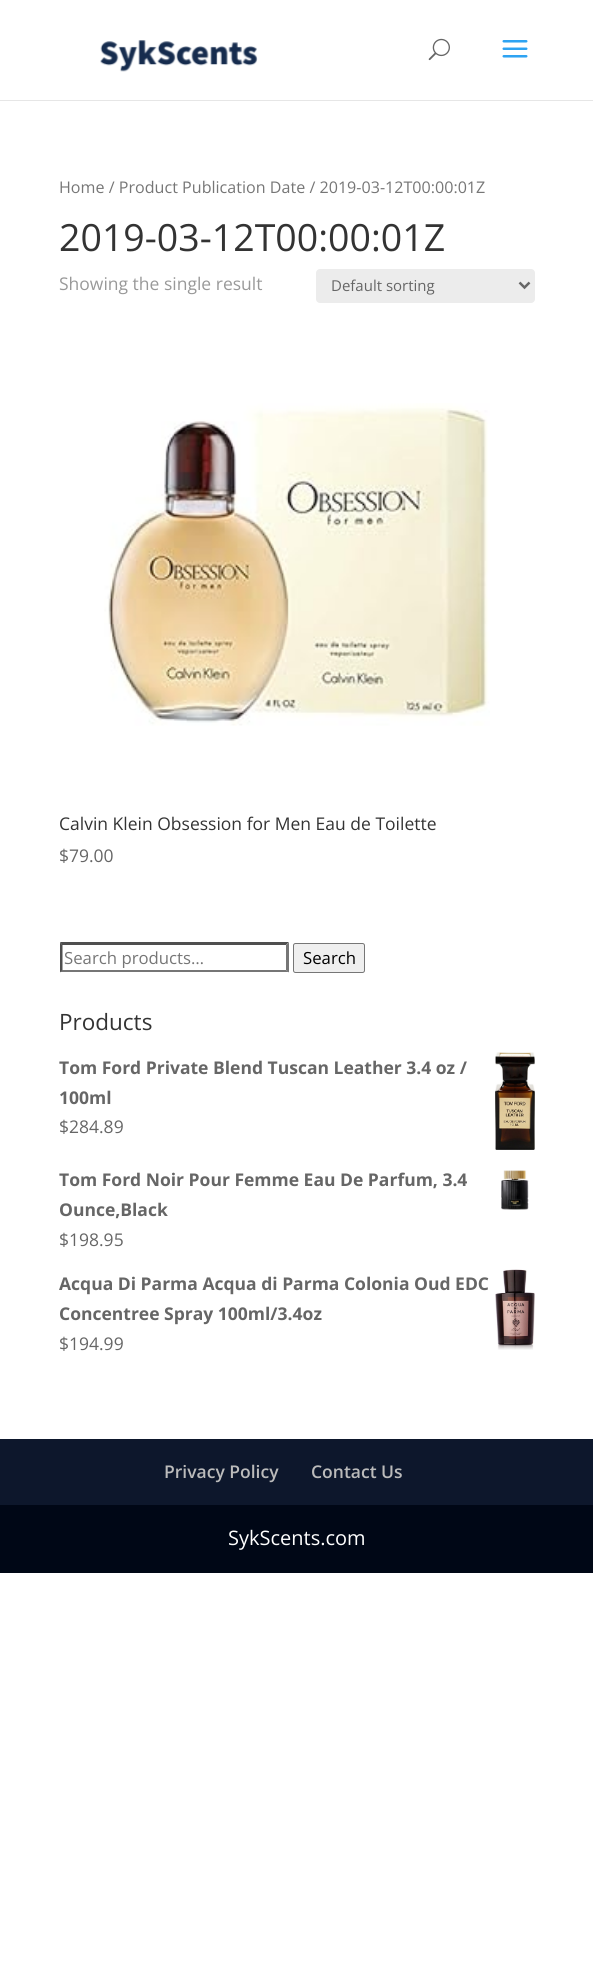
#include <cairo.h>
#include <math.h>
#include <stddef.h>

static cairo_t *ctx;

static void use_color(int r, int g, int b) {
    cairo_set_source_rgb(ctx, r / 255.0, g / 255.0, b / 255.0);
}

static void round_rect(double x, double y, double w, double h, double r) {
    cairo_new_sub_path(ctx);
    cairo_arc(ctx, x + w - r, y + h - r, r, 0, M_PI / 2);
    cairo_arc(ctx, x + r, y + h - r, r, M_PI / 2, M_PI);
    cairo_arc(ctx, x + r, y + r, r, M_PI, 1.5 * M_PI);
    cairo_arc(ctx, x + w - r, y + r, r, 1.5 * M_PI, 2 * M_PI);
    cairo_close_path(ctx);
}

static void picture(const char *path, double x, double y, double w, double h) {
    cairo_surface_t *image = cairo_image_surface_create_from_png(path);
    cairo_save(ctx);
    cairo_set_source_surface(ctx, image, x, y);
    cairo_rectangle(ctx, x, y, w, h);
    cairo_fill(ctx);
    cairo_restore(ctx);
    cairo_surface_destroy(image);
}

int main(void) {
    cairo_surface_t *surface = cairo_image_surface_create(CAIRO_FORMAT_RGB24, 593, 1973);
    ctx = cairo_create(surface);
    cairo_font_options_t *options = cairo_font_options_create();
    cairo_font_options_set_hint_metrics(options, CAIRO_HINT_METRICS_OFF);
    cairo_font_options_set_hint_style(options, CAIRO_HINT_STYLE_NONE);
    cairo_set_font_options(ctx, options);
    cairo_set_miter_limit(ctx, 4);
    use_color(255, 255, 255);
    cairo_paint(ctx);
    use_color(230, 230, 230);
    cairo_new_path(ctx);
    cairo_move_to(ctx, 0, 100);
    cairo_line_to(ctx, 0, 101);
    cairo_line_to(ctx, 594, 101);
    cairo_line_to(ctx, 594, 1);
    cairo_line_to(ctx, 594, 100);
    cairo_close_path(ctx);
    cairo_fill(ctx);
    picture("img1.png", 100, 40, 158, 32);
    picture("img2.png", 428, 38, 22, 23);
    picture("img3.png", 502, 40, 26, 18);
    cairo_select_font_face(ctx, "Open Sans", CAIRO_FONT_SLANT_NORMAL, CAIRO_FONT_WEIGHT_NORMAL);
    cairo_set_font_size(ctx, 16.1);
    use_color(118, 118, 118);
    cairo_move_to(ctx, 59, 193);
    cairo_show_text(ctx, "Home / Product Publication Date / 2019-03-12T00:00:01Z");
    cairo_set_font_size(ctx, 37.5);
    use_color(51, 51, 51);
    cairo_move_to(ctx, 59, 251);
    cairo_show_text(ctx, "2019-03-12T00:00:01Z");
    cairo_set_font_size(ctx, 17.5);
    use_color(153, 153, 153);
    cairo_move_to(ctx, 59, 290);
    cairo_show_text(ctx, "Showing the single result");
    use_color(236, 236, 236);
    round_rect(316, 269, 219, 34, 4);
    cairo_fill(ctx);
    cairo_new_path(ctx);
    cairo_move_to(ctx, 519.5, 282.5);
    cairo_line_to(ctx, 524.5, 287.5);
    cairo_line_to(ctx, 529.5, 282.5);
    use_color(102, 102, 102);
    cairo_set_line_width(ctx, 2.5);
    cairo_stroke(ctx);
    cairo_set_font_size(ctx, 15);
    cairo_move_to(ctx, 331, 291);
    cairo_show_text(ctx, "Default sorting");
    picture("img4.png", 104, 403, 386, 323);
    cairo_set_font_size(ctx, 17.5);
    use_color(51, 51, 51);
    cairo_move_to(ctx, 59, 830);
    cairo_show_text(ctx, "Calvin Klein Obsession for Men Eau de Toilette");
    use_color(102, 102, 102);
    cairo_move_to(ctx, 59, 862);
    cairo_show_text(ctx, "$79.00");
    use_color(79, 79, 79);
    cairo_new_path(ctx);
    cairo_move_to(ctx, 60, 942);
    cairo_line_to(ctx, 289, 942);
    cairo_line_to(ctx, 286, 945);
    cairo_line_to(ctx, 62, 945);
    cairo_close_path(ctx);
    cairo_fill(ctx);
    use_color(118, 118, 118);
    cairo_new_path(ctx);
    cairo_move_to(ctx, 289, 942.5);
    cairo_line_to(ctx, 289, 972.5);
    cairo_line_to(ctx, 286, 970);
    cairo_line_to(ctx, 286, 945);
    cairo_close_path(ctx);
    cairo_fill(ctx);
    cairo_new_path(ctx);
    cairo_move_to(ctx, 289, 972);
    cairo_line_to(ctx, 60, 972);
    cairo_line_to(ctx, 62, 970);
    cairo_line_to(ctx, 286, 970);
    cairo_close_path(ctx);
    cairo_fill(ctx);
    use_color(79, 79, 79);
    cairo_new_path(ctx);
    cairo_move_to(ctx, 60, 972.5);
    cairo_line_to(ctx, 60, 942.5);
    cairo_line_to(ctx, 62.5, 945);
    cairo_line_to(ctx, 62.5, 970);
    cairo_close_path(ctx);
    cairo_fill(ctx);
    cairo_set_font_size(ctx, 16.75);
    use_color(118, 118, 118);
    cairo_move_to(ctx, 64, 964);
    cairo_show_text(ctx, "Search products…");
    use_color(239, 239, 239);
    round_rect(293.5, 943.5, 71, 29, 2);
    cairo_fill_preserve(ctx);
    use_color(118, 118, 118);
    cairo_set_line_width(ctx, 1);
    cairo_stroke(ctx);
    use_color(0, 0, 0);
    cairo_move_to(ctx, 303, 964);
    cairo_show_text(ctx, "Search");
    cairo_set_font_size(ctx, 22.5);
    use_color(51, 51, 51);
    cairo_move_to(ctx, 59, 1030);
    cairo_show_text(ctx, "Products");
    cairo_select_font_face(ctx, "Open Sans", CAIRO_FONT_SLANT_NORMAL, CAIRO_FONT_WEIGHT_BOLD);
    cairo_set_font_size(ctx, 17.5);
    use_color(102, 102, 102);
    cairo_move_to(ctx, 59, 1074);
    cairo_show_text(ctx, "Tom Ford Private Blend Tuscan Leather 3.4 oz /");
    picture("img5.png", 495, 1052, 40, 98);
    cairo_move_to(ctx, 59, 1104);
    cairo_show_text(ctx, "100ml");
    cairo_select_font_face(ctx, "Open Sans", CAIRO_FONT_SLANT_NORMAL, CAIRO_FONT_WEIGHT_NORMAL);
    cairo_move_to(ctx, 59, 1133);
    cairo_show_text(ctx, "$284.89");
    cairo_select_font_face(ctx, "Open Sans", CAIRO_FONT_SLANT_NORMAL, CAIRO_FONT_WEIGHT_BOLD);
    cairo_move_to(ctx, 59, 1186);
    cairo_show_text(ctx, "Tom Ford Noir Pour Femme Eau De Parfum, 3.4");
    picture("img6.png", 501, 1170, 28, 40);
    cairo_move_to(ctx, 59, 1216);
    cairo_show_text(ctx, "Ounce,Black");
    cairo_select_font_face(ctx, "Open Sans", CAIRO_FONT_SLANT_NORMAL, CAIRO_FONT_WEIGHT_NORMAL);
    cairo_move_to(ctx, 59, 1246);
    cairo_show_text(ctx, "$198.95");
    cairo_select_font_face(ctx, "Open Sans", CAIRO_FONT_SLANT_NORMAL, CAIRO_FONT_WEIGHT_BOLD);
    cairo_move_to(ctx, 59, 1290);
    cairo_show_text(ctx, "Acqua Di Parma Acqua di Parma Colonia Oud EDC");
    picture("img7.png", 495, 1269, 40, 81);
    cairo_move_to(ctx, 59, 1320);
    cairo_show_text(ctx, "Concentree Spray 100ml/3.4oz");
    cairo_select_font_face(ctx, "Open Sans", CAIRO_FONT_SLANT_NORMAL, CAIRO_FONT_WEIGHT_NORMAL);
    cairo_move_to(ctx, 59, 1350);
    cairo_show_text(ctx, "$194.99");
    use_color(13, 23, 44);
    cairo_rectangle(ctx, 0, 1439, 593, 66);
    cairo_fill(ctx);
    cairo_select_font_face(ctx, "Open Sans SemiBold", CAIRO_FONT_SLANT_NORMAL, CAIRO_FONT_WEIGHT_NORMAL);
    use_color(187, 187, 187);
    cairo_move_to(ctx, 164, 1478);
    cairo_show_text(ctx, "Privacy Policy");
    cairo_move_to(ctx, 311, 1478);
    cairo_show_text(ctx, "Contact Us");
    use_color(0, 7, 22);
    cairo_rectangle(ctx, 0, 1505, 593, 68);
    cairo_fill(ctx);
    cairo_select_font_face(ctx, "Open Sans", CAIRO_FONT_SLANT_NORMAL, CAIRO_FONT_WEIGHT_NORMAL);
    cairo_set_font_size(ctx, 20);
    use_color(255, 255, 255);
    cairo_move_to(ctx, 228, 1545);
    cairo_show_text(ctx, "SykScents.com");
    cairo_surface_write_to_png(surface, "result.png");
    cairo_font_options_destroy(options);
    cairo_destroy(ctx);
    cairo_surface_destroy(surface);
    return 0;
}
